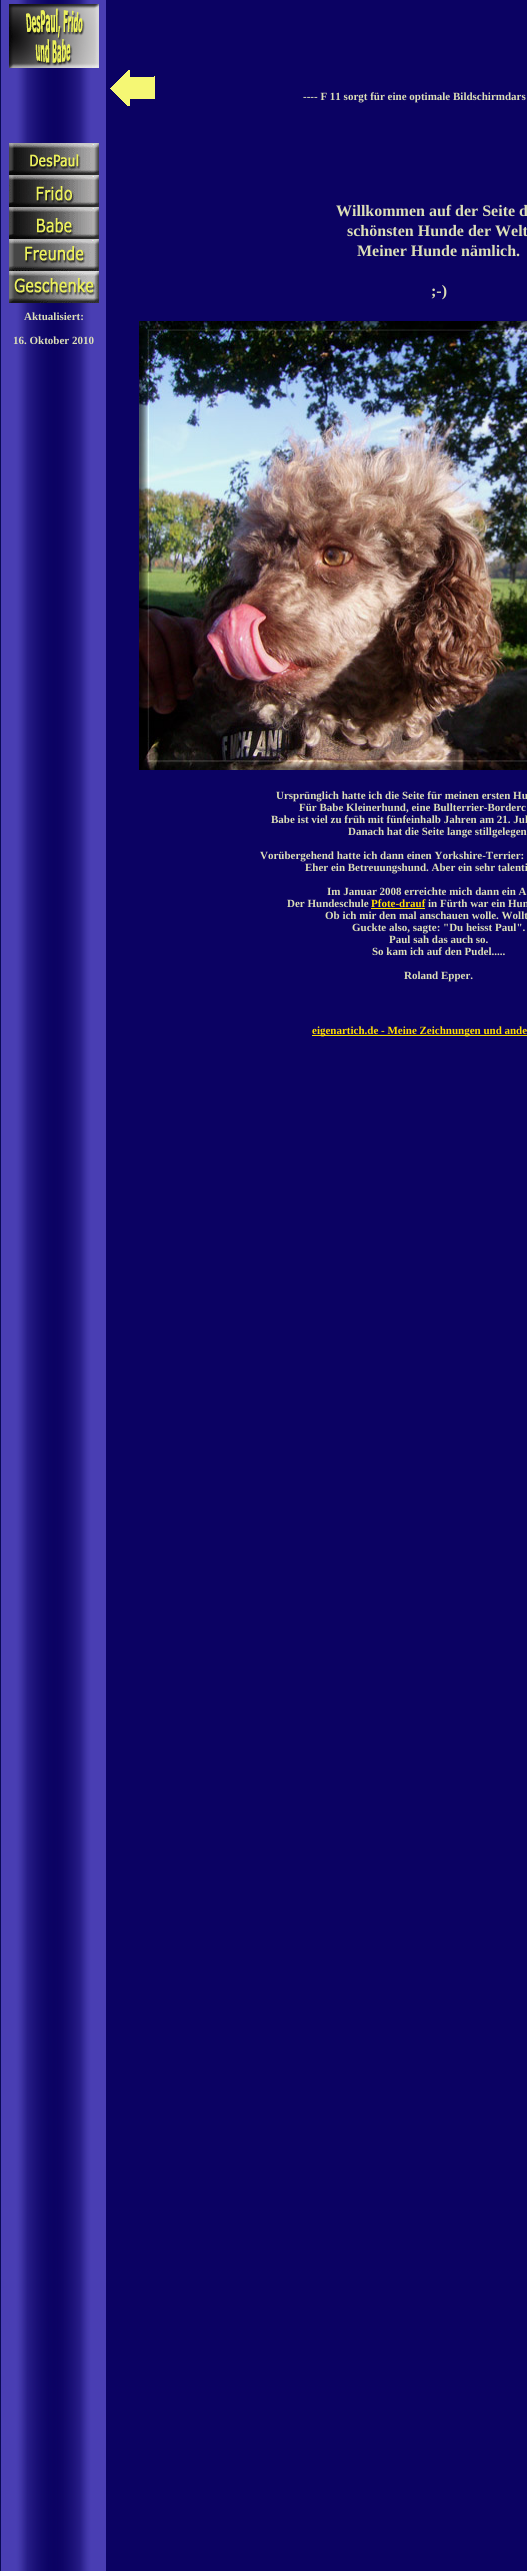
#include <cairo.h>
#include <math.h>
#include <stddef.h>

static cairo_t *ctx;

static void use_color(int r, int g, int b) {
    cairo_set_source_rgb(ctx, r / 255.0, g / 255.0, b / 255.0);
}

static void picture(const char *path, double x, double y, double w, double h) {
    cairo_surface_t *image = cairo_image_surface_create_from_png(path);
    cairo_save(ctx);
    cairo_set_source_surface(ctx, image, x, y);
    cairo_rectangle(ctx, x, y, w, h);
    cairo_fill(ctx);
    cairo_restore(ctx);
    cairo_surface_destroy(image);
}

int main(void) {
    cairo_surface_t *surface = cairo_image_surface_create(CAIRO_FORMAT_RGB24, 527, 2571);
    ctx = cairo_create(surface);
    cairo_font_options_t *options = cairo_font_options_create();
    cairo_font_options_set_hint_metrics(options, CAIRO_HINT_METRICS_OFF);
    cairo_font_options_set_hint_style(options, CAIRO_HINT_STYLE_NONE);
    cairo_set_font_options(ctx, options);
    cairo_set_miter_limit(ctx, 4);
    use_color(10, 10, 84);
    cairo_paint(ctx);
    use_color(11, 2, 99);
    cairo_rectangle(ctx, 106, 0, 421, 2571);
    cairo_fill(ctx);
    picture("img1.png", 110, 70, 45, 36);
    cairo_select_font_face(ctx, "Liberation Serif", CAIRO_FONT_SLANT_NORMAL, CAIRO_FONT_WEIGHT_BOLD);
    cairo_set_font_size(ctx, 11);
    use_color(220, 223, 183);
    cairo_move_to(ctx, 303, 100);
    cairo_show_text(ctx, "---- F 11 sorgt für eine optimale Bildschirmdars");
    picture("img2.png", 1, 0, 105, 2571);
    picture("img3.png", 9, 4, 90, 64);
    picture("img4.png", 9, 143, 90, 32);
    picture("img5.png", 9, 175, 90, 32);
    picture("img6.png", 9, 207, 90, 32);
    picture("img7.png", 9, 239, 90, 32);
    picture("img8.png", 9, 271, 90, 32);
    cairo_move_to(ctx, 24, 320);
    cairo_show_text(ctx, "Aktualisiert:");
    cairo_move_to(ctx, 13, 344);
    cairo_show_text(ctx, "16. Oktober 2010");
    cairo_set_font_size(ctx, 16);
    cairo_move_to(ctx, 336, 216);
    cairo_show_text(ctx, "Willkommen auf der Seite d");
    cairo_move_to(ctx, 347, 236);
    cairo_show_text(ctx, "schönsten Hunde der Welt");
    cairo_move_to(ctx, 357, 256);
    cairo_show_text(ctx, "Meiner Hunde nämlich.");
    cairo_move_to(ctx, 431, 296);
    cairo_show_text(ctx, ";-)");
    picture("img9.png", 139, 321, 388, 449);
    cairo_set_font_size(ctx, 11);
    cairo_move_to(ctx, 276, 799);
    cairo_show_text(ctx, "Ursprünglich hatte ich die Seite für meinen ersten Hu");
    cairo_move_to(ctx, 299, 811);
    cairo_show_text(ctx, "Für Babe Kleinerhund, eine Bullterrier-Borderc");
    cairo_move_to(ctx, 271, 823);
    cairo_show_text(ctx, "Babe ist viel zu früh mit fünfeinhalb Jahren am 21. Jul");
    cairo_move_to(ctx, 348, 835);
    cairo_show_text(ctx, "Danach hat die Seite lange stillgelegen");
    cairo_move_to(ctx, 260, 859);
    cairo_show_text(ctx, "Vorübergehend hatte ich dann einen Yorkshire-Terrier:");
    cairo_move_to(ctx, 305, 871);
    cairo_show_text(ctx, "Eher ein Betreuungshund. Aber ein sehr talenti");
    cairo_move_to(ctx, 327, 895);
    cairo_show_text(ctx, "Im Januar 2008 erreichte mich dann ein A");
    cairo_move_to(ctx, 287, 907);
    cairo_show_text(ctx, "Der Hundeschule");
    use_color(255, 223, 0);
    cairo_move_to(ctx, 371, 907);
    cairo_show_text(ctx, "Pfote-drauf");
    cairo_rectangle(ctx, 371, 908, 54, 1);
    cairo_fill(ctx);
    use_color(220, 223, 183);
    cairo_move_to(ctx, 428, 907);
    cairo_show_text(ctx, "in Fürth war ein Hun");
    cairo_move_to(ctx, 325, 919);
    cairo_show_text(ctx, "Ob ich mir den mal anschauen wolle. Wollt");
    cairo_move_to(ctx, 352, 931);
    cairo_show_text(ctx, "Guckte also, sagte: \"Du heisst Paul\".");
    cairo_move_to(ctx, 389, 943);
    cairo_show_text(ctx, "Paul sah das auch so.");
    cairo_move_to(ctx, 372, 955);
    cairo_show_text(ctx, "So kam ich auf den Pudel.....");
    cairo_move_to(ctx, 404, 979);
    cairo_show_text(ctx, "Roland Epper.");
    use_color(255, 223, 0);
    cairo_rectangle(ctx, 312, 1035, 215, 1);
    cairo_fill(ctx);
    cairo_move_to(ctx, 312, 1034);
    cairo_show_text(ctx, "eigenartich.de - Meine Zeichnungen und ande");
    cairo_surface_write_to_png(surface, "result.png");
    cairo_font_options_destroy(options);
    cairo_destroy(ctx);
    cairo_surface_destroy(surface);
    return 0;
}
